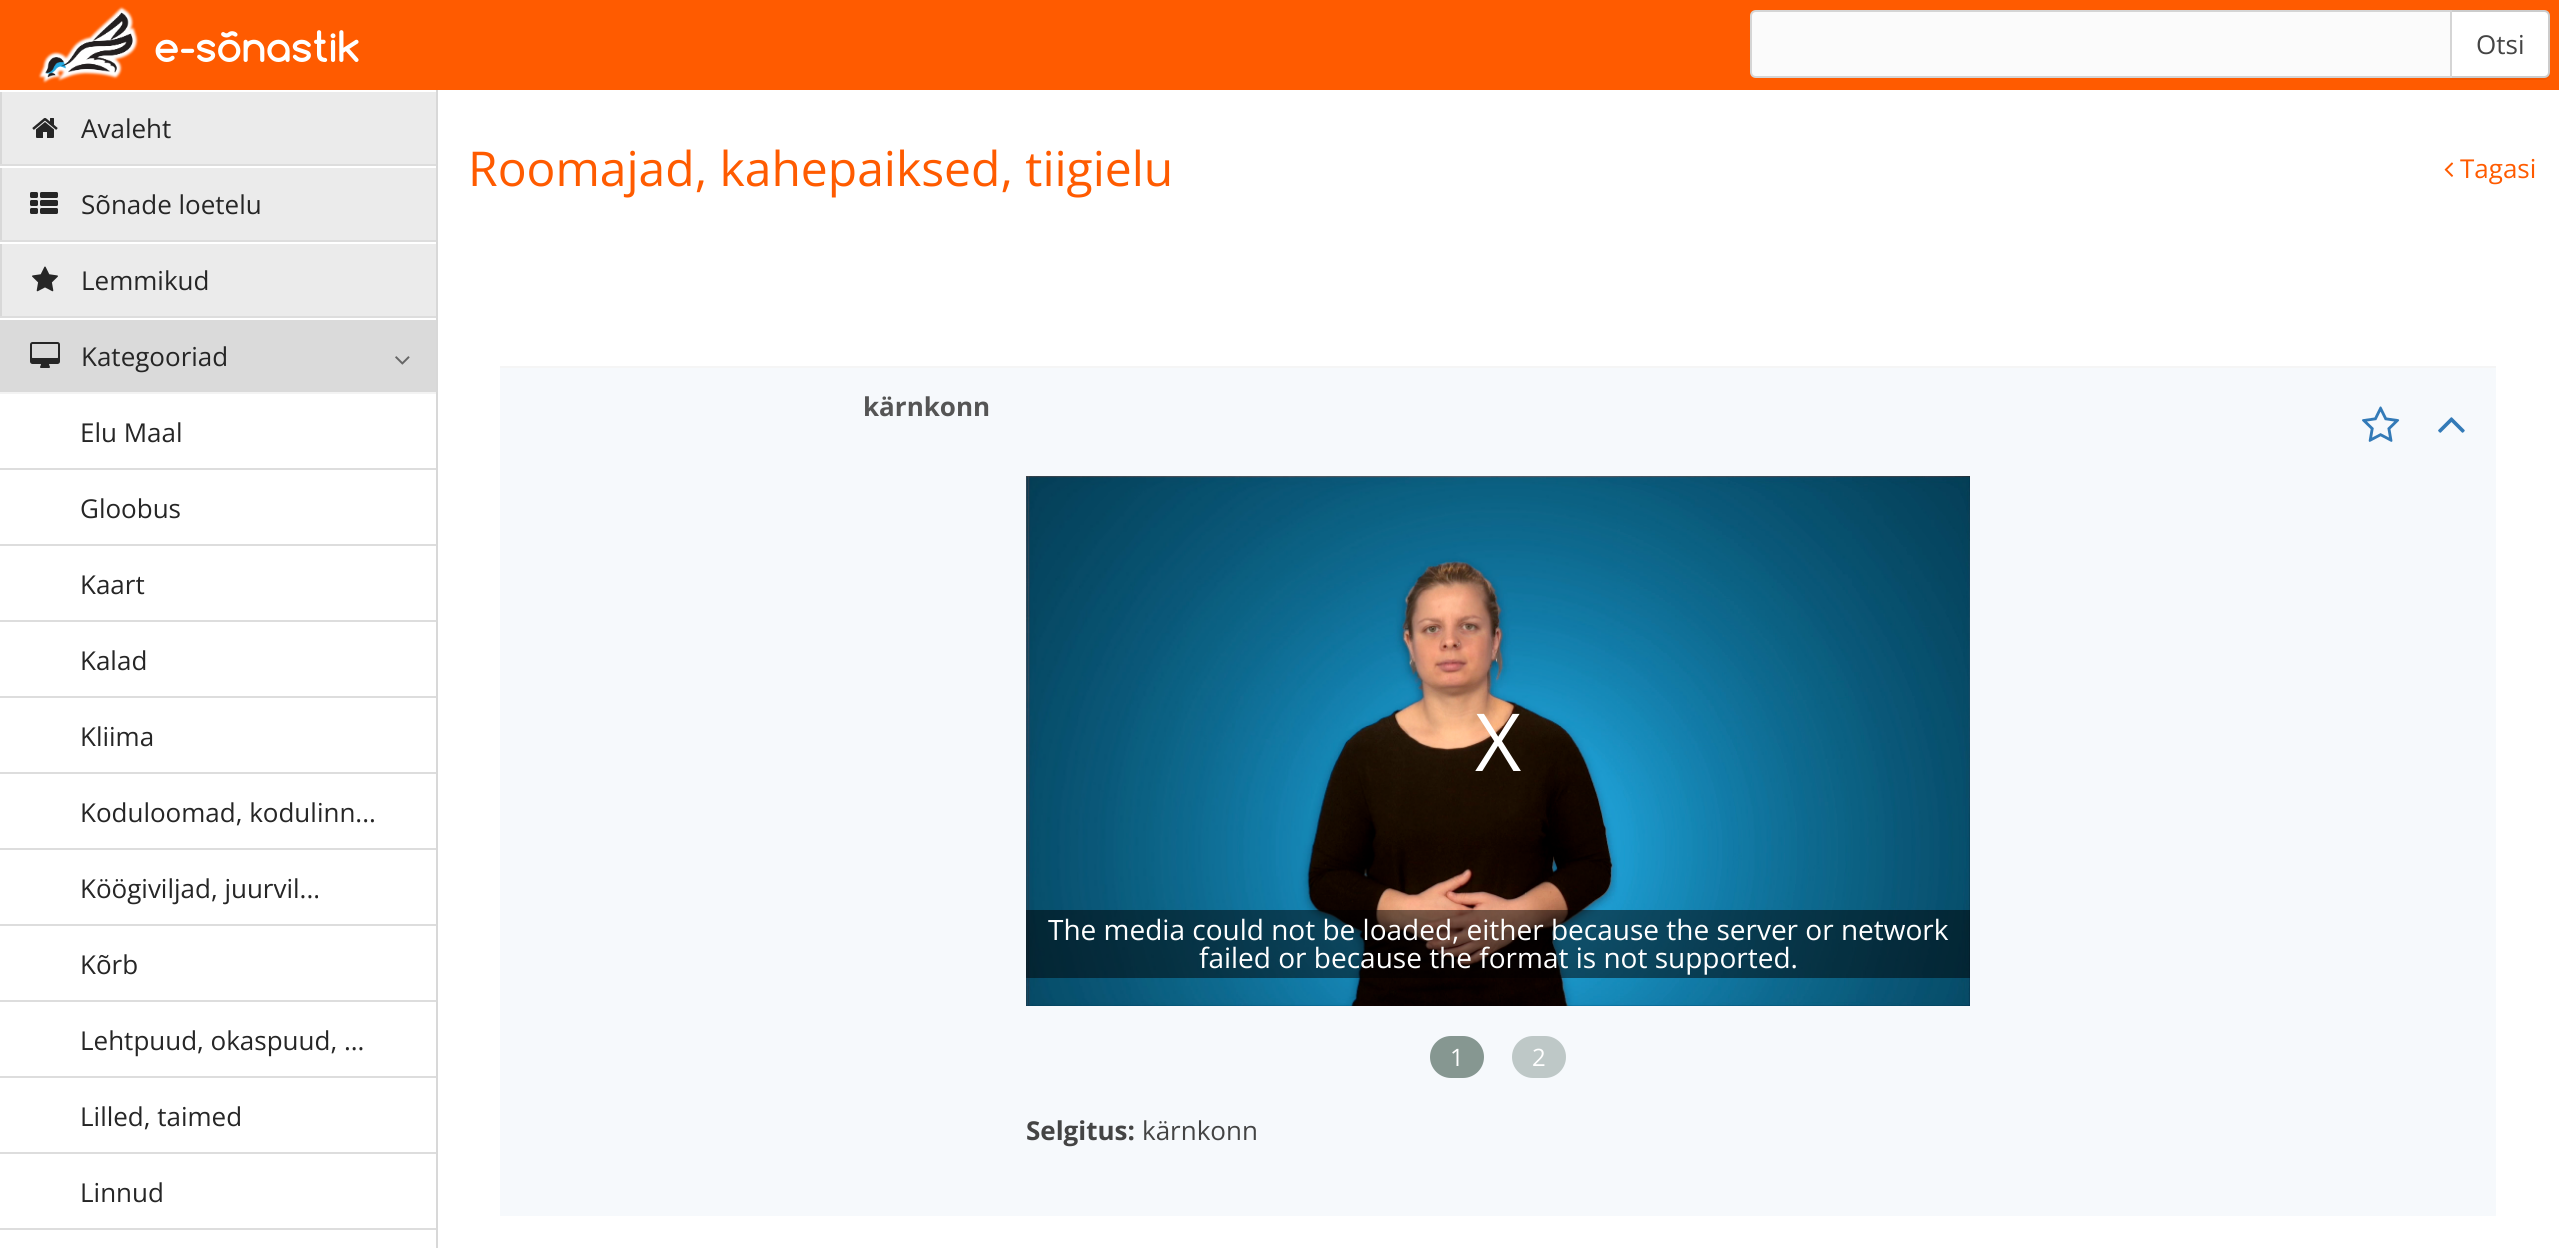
#include <cairo.h>
#include <math.h>
#include <stddef.h>

static cairo_t *ctx;

static void use_color(int r, int g, int b) {
    cairo_set_source_rgb(ctx, r / 255.0, g / 255.0, b / 255.0);
}

static void round_rect(double x, double y, double w, double h, double r) {
    cairo_new_sub_path(ctx);
    cairo_arc(ctx, x + w - r, y + h - r, r, 0, M_PI / 2);
    cairo_arc(ctx, x + r, y + h - r, r, M_PI / 2, M_PI);
    cairo_arc(ctx, x + r, y + r, r, M_PI, 1.5 * M_PI);
    cairo_arc(ctx, x + w - r, y + r, r, 1.5 * M_PI, 2 * M_PI);
    cairo_close_path(ctx);
}

static void picture(const char *path, double x, double y, double w, double h) {
    cairo_surface_t *image = cairo_image_surface_create_from_png(path);
    cairo_save(ctx);
    cairo_set_source_surface(ctx, image, x, y);
    cairo_rectangle(ctx, x, y, w, h);
    cairo_fill(ctx);
    cairo_restore(ctx);
    cairo_surface_destroy(image);
}

int main(void) {
    cairo_surface_t *surface = cairo_image_surface_create(CAIRO_FORMAT_RGB24, 2559, 1248);
    ctx = cairo_create(surface);
    cairo_font_options_t *options = cairo_font_options_create();
    cairo_font_options_set_hint_metrics(options, CAIRO_HINT_METRICS_OFF);
    cairo_font_options_set_hint_style(options, CAIRO_HINT_STYLE_NONE);
    cairo_set_font_options(ctx, options);
    cairo_set_miter_limit(ctx, 4);
    use_color(255, 255, 255);
    cairo_paint(ctx);
    use_color(255, 91, 0);
    cairo_rectangle(ctx, 0, 0, 2559, 90);
    cairo_fill(ctx);
    picture("img1.png", 38, 6, 101, 78);
    cairo_select_font_face(ctx, "Comfortaa", CAIRO_FONT_SLANT_NORMAL, CAIRO_FONT_WEIGHT_BOLD);
    cairo_set_font_size(ctx, 40.75);
    use_color(255, 255, 255);
    cairo_move_to(ctx, 154, 62);
    cairo_show_text(ctx, "e-sõnastik");
    use_color(242, 86, 0);
    cairo_new_path(ctx);
    cairo_move_to(ctx, 2450, 78);
    cairo_line_to(ctx, 2450, 80);
    cairo_line_to(ctx, 2544, 80);
    cairo_curve_to(ctx, 2547, 80, 2550, 77, 2550, 74);
    cairo_line_to(ctx, 2550, 72);
    cairo_curve_to(ctx, 2550, 75, 2547, 78, 2544, 78);
    cairo_close_path(ctx);
    cairo_fill(ctx);
    use_color(255, 255, 255);
    cairo_new_path(ctx);
    cairo_move_to(ctx, 2451, 11);
    cairo_line_to(ctx, 2544, 11);
    cairo_curve_to(ctx, 2547, 11, 2549, 13, 2549, 16);
    cairo_line_to(ctx, 2549, 72);
    cairo_curve_to(ctx, 2549, 75, 2547, 77, 2544, 77);
    cairo_line_to(ctx, 2451, 77);
    cairo_close_path(ctx);
    cairo_fill_preserve(ctx);
    use_color(204, 204, 204);
    cairo_stroke(ctx);
    use_color(251, 251, 251);
    cairo_new_path(ctx);
    cairo_move_to(ctx, 1756, 11);
    cairo_line_to(ctx, 2451, 11);
    cairo_line_to(ctx, 2451, 77);
    cairo_line_to(ctx, 1756, 77);
    cairo_curve_to(ctx, 1753, 77, 1751, 75, 1751, 72);
    cairo_line_to(ctx, 1751, 16);
    cairo_curve_to(ctx, 1751, 13, 1753, 11, 1756, 11);
    cairo_close_path(ctx);
    cairo_fill_preserve(ctx);
    use_color(213, 213, 213);
    cairo_stroke(ctx);
    cairo_select_font_face(ctx, "Open Sans", CAIRO_FONT_SLANT_NORMAL, CAIRO_FONT_WEIGHT_NORMAL);
    cairo_set_font_size(ctx, 26);
    use_color(68, 68, 68);
    cairo_move_to(ctx, 2476, 54);
    cairo_show_text(ctx, "Otsi");
    use_color(235, 235, 235);
    cairo_rectangle(ctx, 2, 92, 434, 224);
    cairo_fill(ctx);
    use_color(216, 216, 216);
    cairo_rectangle(ctx, 436, 90, 2, 1158);
    cairo_fill(ctx);
    cairo_rectangle(ctx, 0, 92, 2, 224);
    cairo_fill(ctx);
    use_color(221, 221, 221);
    cairo_rectangle(ctx, 0, 164, 436, 2);
    cairo_fill(ctx);
    picture("img2.png", 32, 118, 26, 20);
    use_color(38, 38, 38);
    cairo_move_to(ctx, 81, 138);
    cairo_show_text(ctx, "Avaleht");
    use_color(255, 255, 255);
    cairo_rectangle(ctx, 0, 166, 436, 2);
    cairo_fill(ctx);
    use_color(221, 221, 221);
    cairo_rectangle(ctx, 0, 240, 436, 2);
    cairo_fill(ctx);
    picture("img3.png", 30, 192, 28, 22);
    use_color(38, 38, 38);
    cairo_move_to(ctx, 81, 214);
    cairo_show_text(ctx, "Sõnade loetelu");
    use_color(255, 255, 255);
    cairo_rectangle(ctx, 0, 242, 436, 2);
    cairo_fill(ctx);
    use_color(221, 221, 221);
    cairo_rectangle(ctx, 0, 316, 436, 2);
    cairo_fill(ctx);
    picture("img4.png", 32, 266, 26, 26);
    use_color(38, 38, 38);
    cairo_move_to(ctx, 81, 290);
    cairo_show_text(ctx, "Lemmikud");
    use_color(218, 218, 218);
    cairo_rectangle(ctx, 0, 320, 436, 72);
    cairo_fill(ctx);
    use_color(243, 243, 243);
    cairo_rectangle(ctx, 0, 392, 436, 2);
    cairo_fill(ctx);
    picture("img5.png", 30, 342, 30, 26);
    use_color(38, 38, 38);
    cairo_move_to(ctx, 81, 366);
    cairo_show_text(ctx, "Kategooriad");
    picture("img6.png", 395, 356, 15, 9);
    use_color(221, 221, 221);
    cairo_rectangle(ctx, 0, 468, 436, 2);
    cairo_fill(ctx);
    use_color(38, 38, 38);
    cairo_move_to(ctx, 80, 442);
    cairo_show_text(ctx, "Elu Maal");
    use_color(221, 221, 221);
    cairo_rectangle(ctx, 0, 544, 436, 2);
    cairo_fill(ctx);
    use_color(38, 38, 38);
    cairo_move_to(ctx, 80, 518);
    cairo_show_text(ctx, "Gloobus");
    use_color(221, 221, 221);
    cairo_rectangle(ctx, 0, 620, 436, 2);
    cairo_fill(ctx);
    use_color(38, 38, 38);
    cairo_move_to(ctx, 80, 594);
    cairo_show_text(ctx, "Kaart");
    use_color(221, 221, 221);
    cairo_rectangle(ctx, 0, 696, 436, 2);
    cairo_fill(ctx);
    use_color(38, 38, 38);
    cairo_move_to(ctx, 80, 670);
    cairo_show_text(ctx, "Kalad");
    use_color(221, 221, 221);
    cairo_rectangle(ctx, 0, 772, 436, 2);
    cairo_fill(ctx);
    use_color(38, 38, 38);
    cairo_move_to(ctx, 80, 746);
    cairo_show_text(ctx, "Kliima");
    use_color(221, 221, 221);
    cairo_rectangle(ctx, 0, 848, 436, 2);
    cairo_fill(ctx);
    use_color(38, 38, 38);
    cairo_move_to(ctx, 80, 822);
    cairo_show_text(ctx, "Koduloomad, kodulinn...");
    use_color(221, 221, 221);
    cairo_rectangle(ctx, 0, 924, 436, 2);
    cairo_fill(ctx);
    use_color(38, 38, 38);
    cairo_move_to(ctx, 80, 898);
    cairo_show_text(ctx, "Köögiviljad, juurvil...");
    use_color(221, 221, 221);
    cairo_rectangle(ctx, 0, 1000, 436, 2);
    cairo_fill(ctx);
    use_color(38, 38, 38);
    cairo_move_to(ctx, 80, 974);
    cairo_show_text(ctx, "Kõrb");
    use_color(221, 221, 221);
    cairo_rectangle(ctx, 0, 1076, 436, 2);
    cairo_fill(ctx);
    use_color(38, 38, 38);
    cairo_move_to(ctx, 80, 1050);
    cairo_show_text(ctx, "Lehtpuud, okaspuud, ...");
    use_color(221, 221, 221);
    cairo_rectangle(ctx, 0, 1152, 436, 2);
    cairo_fill(ctx);
    use_color(38, 38, 38);
    cairo_move_to(ctx, 80, 1126);
    cairo_show_text(ctx, "Lilled, taimed");
    use_color(221, 221, 221);
    cairo_rectangle(ctx, 0, 1228, 436, 2);
    cairo_fill(ctx);
    use_color(38, 38, 38);
    cairo_move_to(ctx, 80, 1202);
    cairo_show_text(ctx, "Linnud");
    cairo_set_font_size(ctx, 48);
    use_color(255, 91, 0);
    cairo_move_to(ctx, 468, 186);
    cairo_show_text(ctx, "Roomajad, kahepaiksed, tiigielu");
    picture("img7.png", 2444, 162, 10, 15);
    cairo_set_font_size(ctx, 26);
    cairo_move_to(ctx, 2460, 178);
    cairo_show_text(ctx, "Tagasi");
    use_color(246, 249, 252);
    cairo_rectangle(ctx, 500, 368, 1996, 848);
    cairo_fill(ctx);
    use_color(245, 245, 245);
    cairo_rectangle(ctx, 500, 366, 1996, 2);
    cairo_fill(ctx);
    cairo_select_font_face(ctx, "Open Sans", CAIRO_FONT_SLANT_NORMAL, CAIRO_FONT_WEIGHT_BOLD);
    use_color(85, 85, 85);
    cairo_move_to(ctx, 863, 416);
    cairo_show_text(ctx, "kärnkonn");
    picture("img8.png", 2362, 406, 38, 36);
    picture("img9.png", 2438, 417, 27, 16);
    picture("img10.png", 1026, 476, 944, 530);
    picture("img11.png", 1028, 476, 589, 530);
    cairo_select_font_face(ctx, "Open Sans", CAIRO_FONT_SLANT_NORMAL, CAIRO_FONT_WEIGHT_NORMAL);
    cairo_set_font_size(ctx, 80);
    use_color(255, 255, 255);
    cairo_move_to(ctx, 1475, 771);
    cairo_show_text(ctx, "X");
    cairo_set_source_rgba(ctx, 0, 0, 0, 0.5);
    cairo_rectangle(ctx, 1026, 910, 944, 68);
    cairo_fill(ctx);
    cairo_set_font_size(ctx, 28);
    use_color(255, 255, 255);
    cairo_move_to(ctx, 1048, 940);
    cairo_show_text(ctx, "The media could not be loaded, either because the server or network");
    cairo_move_to(ctx, 1199, 968);
    cairo_show_text(ctx, "failed or because the format is not supported.");
    use_color(134, 151, 145);
    round_rect(1430, 1036, 54, 42, 21);
    cairo_fill(ctx);
    cairo_set_font_size(ctx, 24);
    use_color(255, 255, 255);
    cairo_move_to(ctx, 1450, 1066);
    cairo_show_text(ctx, "1");
    use_color(190, 200, 199);
    round_rect(1512, 1036, 54, 42, 21);
    cairo_fill(ctx);
    use_color(255, 255, 255);
    cairo_move_to(ctx, 1532, 1066);
    cairo_show_text(ctx, "2");
    cairo_select_font_face(ctx, "Open Sans", CAIRO_FONT_SLANT_NORMAL, CAIRO_FONT_WEIGHT_BOLD);
    cairo_set_font_size(ctx, 26);
    use_color(68, 68, 68);
    cairo_move_to(ctx, 1026, 1140);
    cairo_show_text(ctx, "Selgitus:");
    cairo_select_font_face(ctx, "Open Sans", CAIRO_FONT_SLANT_NORMAL, CAIRO_FONT_WEIGHT_NORMAL);
    cairo_move_to(ctx, 1142, 1140);
    cairo_show_text(ctx, "kärnkonn");
    cairo_surface_write_to_png(surface, "result.png");
    cairo_font_options_destroy(options);
    cairo_destroy(ctx);
    cairo_surface_destroy(surface);
    return 0;
}
